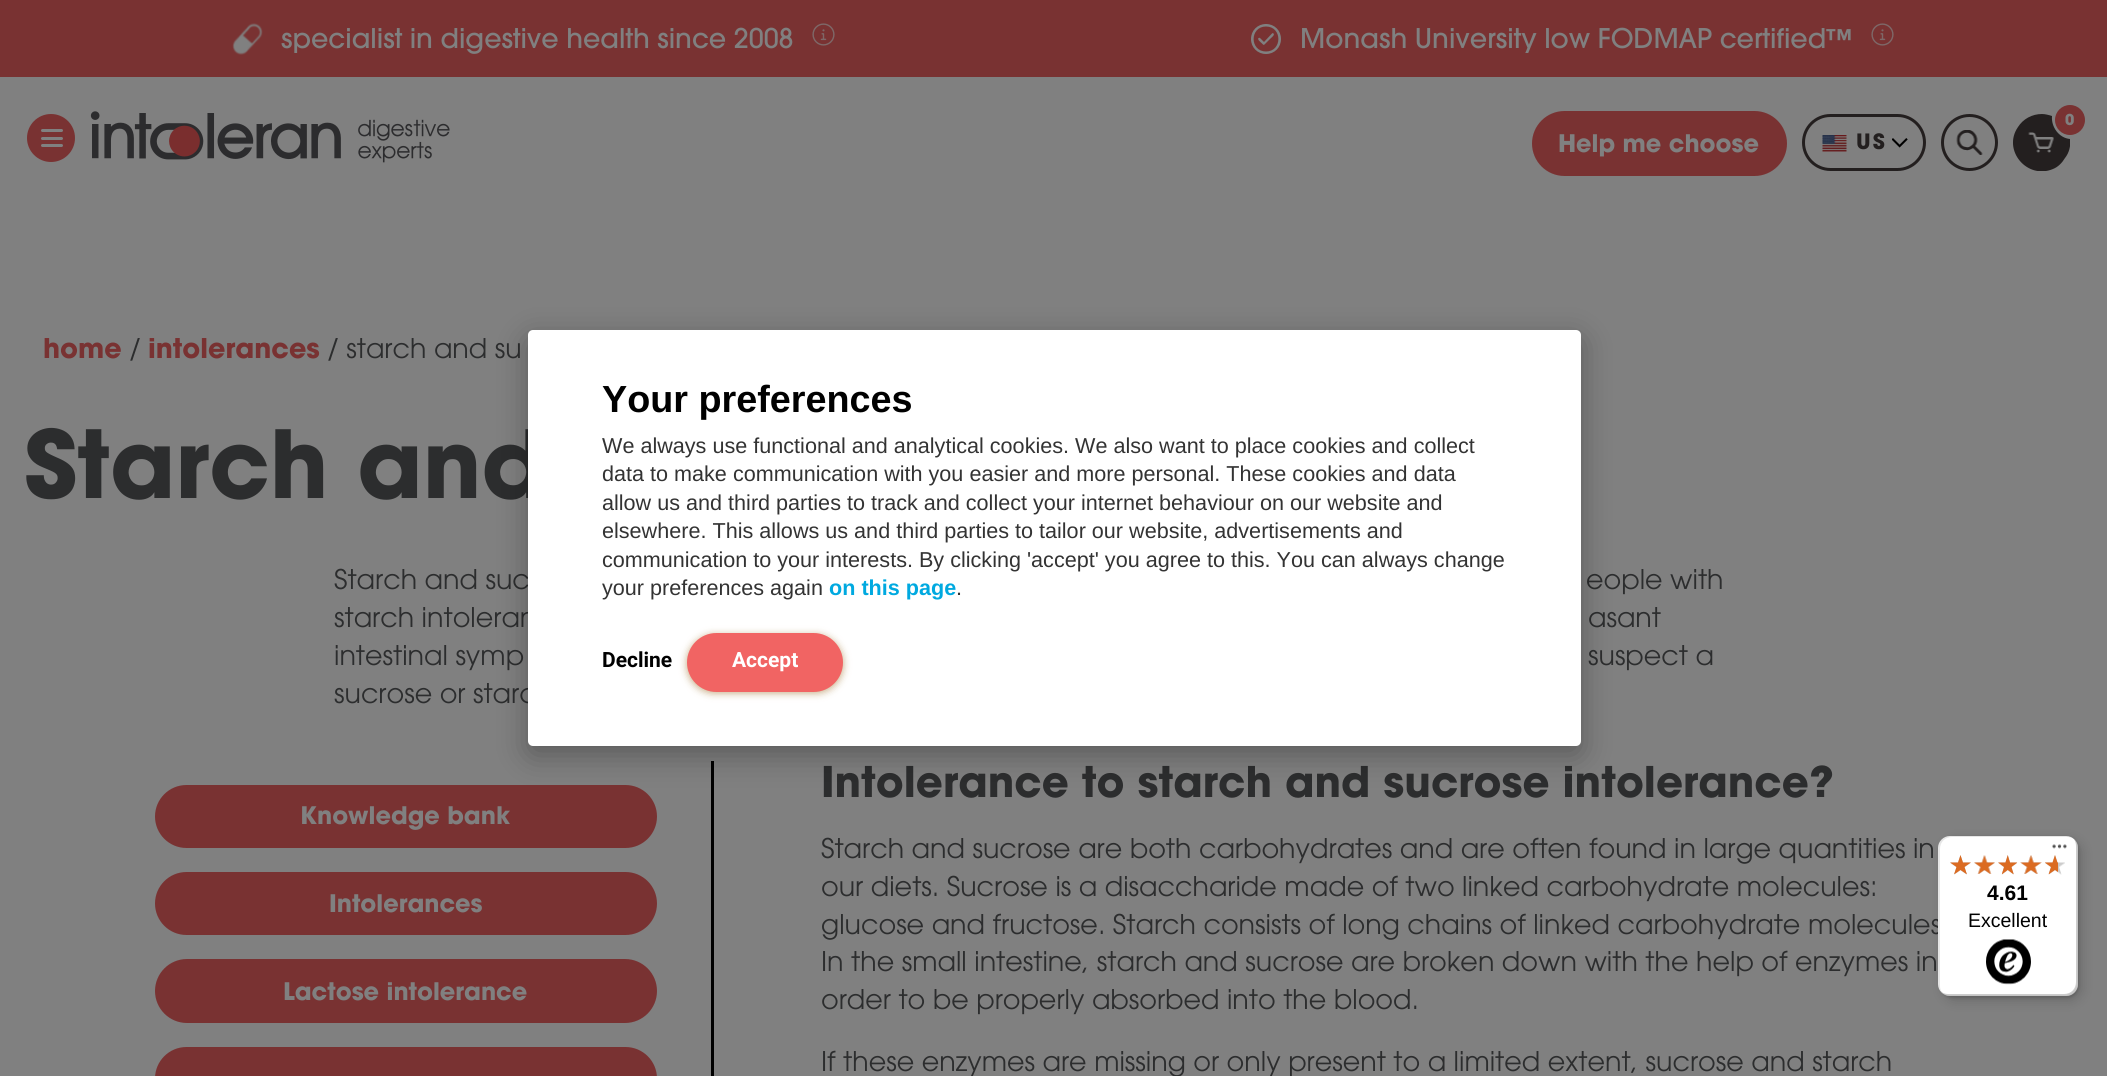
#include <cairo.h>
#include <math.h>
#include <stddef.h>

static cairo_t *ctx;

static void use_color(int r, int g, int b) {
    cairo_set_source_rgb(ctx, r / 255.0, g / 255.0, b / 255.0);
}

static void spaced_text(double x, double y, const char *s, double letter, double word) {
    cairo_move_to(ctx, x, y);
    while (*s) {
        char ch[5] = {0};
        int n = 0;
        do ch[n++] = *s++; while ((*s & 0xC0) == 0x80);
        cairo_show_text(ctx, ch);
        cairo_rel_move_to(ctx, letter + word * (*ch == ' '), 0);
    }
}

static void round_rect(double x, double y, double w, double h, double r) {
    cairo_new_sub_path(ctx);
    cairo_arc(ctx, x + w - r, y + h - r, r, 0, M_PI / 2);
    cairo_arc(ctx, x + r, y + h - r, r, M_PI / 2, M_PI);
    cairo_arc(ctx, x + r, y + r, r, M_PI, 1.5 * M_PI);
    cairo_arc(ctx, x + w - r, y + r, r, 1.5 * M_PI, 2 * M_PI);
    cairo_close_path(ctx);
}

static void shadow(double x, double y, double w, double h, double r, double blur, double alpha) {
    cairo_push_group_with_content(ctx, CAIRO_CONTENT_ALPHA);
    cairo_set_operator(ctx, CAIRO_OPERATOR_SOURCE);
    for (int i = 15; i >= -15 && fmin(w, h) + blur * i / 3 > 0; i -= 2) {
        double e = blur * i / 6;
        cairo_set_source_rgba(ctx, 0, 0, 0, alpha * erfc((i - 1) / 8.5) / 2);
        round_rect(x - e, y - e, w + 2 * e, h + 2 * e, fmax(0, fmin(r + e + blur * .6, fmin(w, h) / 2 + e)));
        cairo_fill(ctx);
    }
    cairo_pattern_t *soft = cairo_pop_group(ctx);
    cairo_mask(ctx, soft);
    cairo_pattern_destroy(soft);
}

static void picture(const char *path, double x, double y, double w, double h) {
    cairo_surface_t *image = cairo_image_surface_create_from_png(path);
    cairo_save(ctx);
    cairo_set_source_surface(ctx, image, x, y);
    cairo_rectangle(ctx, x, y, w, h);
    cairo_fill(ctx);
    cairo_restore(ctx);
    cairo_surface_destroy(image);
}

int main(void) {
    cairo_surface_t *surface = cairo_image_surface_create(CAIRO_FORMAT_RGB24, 2107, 1076);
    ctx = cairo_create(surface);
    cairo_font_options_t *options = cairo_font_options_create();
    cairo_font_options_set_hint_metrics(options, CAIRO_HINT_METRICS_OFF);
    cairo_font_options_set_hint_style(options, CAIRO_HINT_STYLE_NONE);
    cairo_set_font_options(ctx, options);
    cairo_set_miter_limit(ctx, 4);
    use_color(128, 128, 128);
    cairo_paint(ctx);
    use_color(121, 50, 50);
    cairo_rectangle(ctx, 0, 0, 2107, 77);
    cairo_fill(ctx);
    picture("img1.png", 232, 23, 31, 32);
    cairo_select_font_face(ctx, "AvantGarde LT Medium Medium", CAIRO_FONT_SLANT_NORMAL, CAIRO_FONT_WEIGHT_NORMAL);
    cairo_set_font_size(ctx, 27);
    use_color(128, 128, 128);
    cairo_move_to(ctx, 281, 48);
    cairo_show_text(ctx, "specialist in digestive health since 2008");
    picture("img2.png", 812, 23, 23, 23);
    cairo_set_fill_rule(ctx, CAIRO_FILL_RULE_EVEN_ODD);
    cairo_new_path(ctx);
    cairo_move_to(ctx, 1266, 24);
    cairo_curve_to(ctx, 1274.5, 24, 1281, 30.5, 1281, 39);
    cairo_curve_to(ctx, 1281, 47.5, 1274.5, 54, 1266, 54);
    cairo_curve_to(ctx, 1257.5, 54, 1251, 47.5, 1251, 39);
    cairo_curve_to(ctx, 1251, 30.5, 1257.5, 24, 1266, 24);
    cairo_close_path(ctx);
    cairo_move_to(ctx, 1266, 26.5);
    cairo_curve_to(ctx, 1282.5, 26.5, 1282.5, 51.5, 1266, 51.5);
    cairo_curve_to(ctx, 1249.5, 51.5, 1249.5, 26.5, 1266, 26.5);
    cairo_close_path(ctx);
    cairo_move_to(ctx, 1272, 33.5);
    cairo_line_to(ctx, 1264, 42);
    cairo_line_to(ctx, 1260, 38);
    cairo_curve_to(ctx, 1259.5, 37.5, 1259, 38, 1258.5, 38);
    cairo_curve_to(ctx, 1257, 39.5, 1260.5, 42, 1261.5, 43);
    cairo_curve_to(ctx, 1264, 45.5, 1263.5, 45.5, 1266, 43);
    cairo_line_to(ctx, 1270.5, 38.5);
    cairo_curve_to(ctx, 1271.5, 37.5, 1275, 35, 1273.5, 33.5);
    cairo_curve_to(ctx, 1273, 33, 1272.5, 33, 1272, 33.5);
    cairo_close_path(ctx);
    cairo_fill(ctx);
    cairo_move_to(ctx, 1300, 48);
    cairo_show_text(ctx, "Monash University low FODMAP certified™");
    picture("img2.png", 1871, 23, 23, 23);
    use_color(121, 50, 50);
    cairo_arc(ctx, 51, 138, 24, 0, 2 * M_PI);
    cairo_fill(ctx);
    use_color(128, 128, 128);
    round_rect(41, 129, 22, 3, 1.5);
    cairo_fill(ctx);
    round_rect(41, 137, 22, 3, 1.5);
    cairo_fill(ctx);
    round_rect(41, 144, 22, 3, 1.5);
    cairo_fill(ctx);
    picture("img3.png", 90, 111, 360, 52);
    use_color(121, 50, 50);
    round_rect(1533.5, 112.5, 252, 62, 31);
    cairo_fill_preserve(ctx);
    cairo_set_line_width(ctx, 3);
    cairo_stroke(ctx);
    cairo_select_font_face(ctx, "AvantGarde LT Medium", CAIRO_FONT_SLANT_NORMAL, CAIRO_FONT_WEIGHT_BOLD);
    cairo_set_font_size(ctx, 24);
    use_color(128, 128, 128);
    cairo_move_to(ctx, 1558, 152);
    cairo_show_text(ctx, "Help me choose");
    round_rect(1803.5, 115.5, 121, 54, 27);
    use_color(35, 31, 31);
    cairo_stroke(ctx);
    picture("img4.png", 1822, 135, 25, 17);
    cairo_set_font_size(ctx, 21);
    spaced_text(1856, 149, "US", 2, 0);
    picture("img5.png", 1892, 138, 16, 10);
    cairo_arc(ctx, 1969.5, 142.5, 27, 0, 2 * M_PI);
    cairo_stroke(ctx);
    picture("img6.png", 1956, 130, 27, 25);
    cairo_save(ctx);
    cairo_set_fill_rule(ctx, CAIRO_FILL_RULE_WINDING);
    cairo_rectangle(ctx, 2013, 114, 57, 57);
    cairo_clip(ctx);
    cairo_new_path(ctx);
    cairo_move_to(ctx, 2042, 114);
    cairo_curve_to(ctx, 2032, 114, 2023, 119, 2018, 127);
    cairo_curve_to(ctx, 2002, 150, 2027, 180, 2053, 169);
    cairo_curve_to(ctx, 2058, 167, 2062, 163, 2065, 158);
    cairo_curve_to(ctx, 2069, 153, 2071, 146, 2070, 139);
    cairo_curve_to(ctx, 2059, 138, 2051, 127, 2052, 116);
    cairo_curve_to(ctx, 2049, 115, 2045, 114, 2042, 114);
    cairo_close_path(ctx);
    cairo_fill(ctx);
    cairo_restore(ctx);
    use_color(121, 50, 50);
    cairo_arc(ctx, 2070, 120, 15, 0, 2 * M_PI);
    cairo_fill(ctx);
    cairo_set_font_size(ctx, 15);
    use_color(128, 128, 128);
    cairo_move_to(ctx, 2065, 125);
    cairo_show_text(ctx, "0");
    picture("img7.png", 2028, 132, 26, 21);
    cairo_set_font_size(ctx, 27);
    use_color(121, 50, 50);
    cairo_move_to(ctx, 43, 358);
    cairo_show_text(ctx, "home");
    cairo_select_font_face(ctx, "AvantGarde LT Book", CAIRO_FONT_SLANT_NORMAL, CAIRO_FONT_WEIGHT_NORMAL);
    use_color(44, 45, 46);
    cairo_move_to(ctx, 129, 358);
    cairo_show_text(ctx, "/");
    cairo_select_font_face(ctx, "AvantGarde LT Medium", CAIRO_FONT_SLANT_NORMAL, CAIRO_FONT_WEIGHT_BOLD);
    use_color(121, 50, 50);
    cairo_move_to(ctx, 148, 358);
    cairo_show_text(ctx, "intolerances");
    cairo_select_font_face(ctx, "AvantGarde LT Book", CAIRO_FONT_SLANT_NORMAL, CAIRO_FONT_WEIGHT_NORMAL);
    use_color(44, 45, 46);
    cairo_move_to(ctx, 327, 358);
    cairo_show_text(ctx, "/ starch and su");
    cairo_select_font_face(ctx, "AvantGarde LT Medium", CAIRO_FONT_SLANT_NORMAL, CAIRO_FONT_WEIGHT_BOLD);
    cairo_set_font_size(ctx, 93);
    cairo_move_to(ctx, 24, 498);
    cairo_show_text(ctx, "Starch and");
    cairo_select_font_face(ctx, "AvantGarde LT Book", CAIRO_FONT_SLANT_NORMAL, CAIRO_FONT_WEIGHT_NORMAL);
    cairo_set_font_size(ctx, 27);
    cairo_move_to(ctx, 334, 589);
    cairo_show_text(ctx, "Starch and suc");
    cairo_move_to(ctx, 1586, 589);
    cairo_show_text(ctx, "eople with");
    cairo_move_to(ctx, 334, 627);
    cairo_show_text(ctx, "starch intoleran");
    cairo_move_to(ctx, 1588, 627);
    cairo_show_text(ctx, "asant");
    cairo_move_to(ctx, 334, 665);
    cairo_show_text(ctx, "intestinal symp");
    cairo_move_to(ctx, 1588, 665);
    cairo_show_text(ctx, "suspect a");
    cairo_move_to(ctx, 334, 703);
    cairo_show_text(ctx, "sucrose or starc");
    use_color(121, 50, 50);
    round_rect(156.5, 786.5, 499, 60, 30);
    cairo_fill_preserve(ctx);
    cairo_stroke(ctx);
    cairo_select_font_face(ctx, "AvantGarde LT Medium", CAIRO_FONT_SLANT_NORMAL, CAIRO_FONT_WEIGHT_BOLD);
    cairo_set_font_size(ctx, 24);
    use_color(128, 128, 128);
    cairo_move_to(ctx, 300, 824);
    cairo_show_text(ctx, "Knowledge bank");
    use_color(121, 50, 50);
    round_rect(156.5, 873.5, 499, 60, 30);
    cairo_fill_preserve(ctx);
    cairo_stroke(ctx);
    use_color(128, 128, 128);
    cairo_move_to(ctx, 329, 912);
    cairo_show_text(ctx, "Intolerances");
    use_color(121, 50, 50);
    round_rect(156.5, 960.5, 499, 61, 30.5);
    cairo_fill_preserve(ctx);
    cairo_stroke(ctx);
    use_color(128, 128, 128);
    cairo_move_to(ctx, 283, 1000);
    cairo_show_text(ctx, "Lactose intolerance");
    use_color(121, 50, 50);
    round_rect(156.5, 1048.5, 499, 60, 30);
    cairo_fill_preserve(ctx);
    cairo_stroke(ctx);
    use_color(0, 0, 0);
    cairo_rectangle(ctx, 711, 761, 3, 315);
    cairo_fill(ctx);
    cairo_set_font_size(ctx, 42);
    use_color(44, 45, 46);
    cairo_move_to(ctx, 821, 797);
    cairo_show_text(ctx, "Intolerance to starch and sucrose intolerance?");
    cairo_select_font_face(ctx, "AvantGarde LT Book", CAIRO_FONT_SLANT_NORMAL, CAIRO_FONT_WEIGHT_NORMAL);
    cairo_set_font_size(ctx, 27);
    cairo_move_to(ctx, 821, 858);
    cairo_show_text(ctx, "Starch and sucrose are both carbohydrates and are often found in large quantities in");
    cairo_move_to(ctx, 821, 896);
    cairo_show_text(ctx, "our diets. Sucrose is a disaccharide made of two linked carbohydrate molecules:");
    cairo_move_to(ctx, 821, 934);
    cairo_show_text(ctx, "glucose and fructose. Starch consists of long chains of linked carbohydrate molecules");
    cairo_move_to(ctx, 821, 971);
    cairo_show_text(ctx, "In the small intestine, starch and sucrose are broken down with the help of enzymes in");
    cairo_move_to(ctx, 821, 1009);
    cairo_show_text(ctx, "order to be properly absorbed into the blood.");
    cairo_move_to(ctx, 821, 1071);
    cairo_show_text(ctx, "If these enzymes are missing or only present to a limited extent, sucrose and starch");
    use_color(0, 0, 0);
    shadow(528, 339, 1053, 416, 5, 15, 0.3);
    use_color(255, 255, 255);
    round_rect(528, 330, 1053, 416, 5);
    cairo_fill(ctx);
    cairo_select_font_face(ctx, "Liberation Sans", CAIRO_FONT_SLANT_NORMAL, CAIRO_FONT_WEIGHT_BOLD);
    cairo_set_font_size(ctx, 37.75);
    use_color(0, 0, 0);
    cairo_move_to(ctx, 602, 412);
    cairo_show_text(ctx, "Your preferences");
    cairo_select_font_face(ctx, "Liberation Sans", CAIRO_FONT_SLANT_NORMAL, CAIRO_FONT_WEIGHT_NORMAL);
    cairo_set_font_size(ctx, 21.6);
    use_color(51, 51, 51);
    cairo_move_to(ctx, 602, 453);
    cairo_show_text(ctx, "We always use functional and analytical cookies. We also want to place cookies and collect");
    cairo_move_to(ctx, 602, 481);
    cairo_show_text(ctx, "data to make communication with you easier and more personal. These cookies and data");
    cairo_move_to(ctx, 602, 510);
    cairo_show_text(ctx, "allow us and third parties to track and collect your internet behaviour on our website and");
    cairo_move_to(ctx, 602, 538);
    cairo_show_text(ctx, "elsewhere. This allows us and third parties to tailor our website, advertisements and");
    cairo_move_to(ctx, 602, 567);
    cairo_show_text(ctx, "communication to your interests. By clicking 'accept' you agree to this. You can always change");
    cairo_move_to(ctx, 602, 595);
    cairo_show_text(ctx, "your preferences again");
    cairo_select_font_face(ctx, "Liberation Sans", CAIRO_FONT_SLANT_NORMAL, CAIRO_FONT_WEIGHT_BOLD);
    use_color(0, 169, 224);
    cairo_move_to(ctx, 829, 595);
    cairo_show_text(ctx, "on this page");
    cairo_select_font_face(ctx, "Liberation Sans", CAIRO_FONT_SLANT_NORMAL, CAIRO_FONT_WEIGHT_NORMAL);
    use_color(51, 51, 51);
    cairo_move_to(ctx, 956, 595);
    cairo_show_text(ctx, ".");
    cairo_select_font_face(ctx, "Roboto", CAIRO_FONT_SLANT_NORMAL, CAIRO_FONT_WEIGHT_BOLD);
    cairo_set_font_size(ctx, 21);
    use_color(0, 0, 0);
    cairo_move_to(ctx, 602, 667);
    cairo_show_text(ctx, "Decline");
    use_color(139, 83, 0);
    shadow(687, 635, 156, 58, 29, 4, 0.5);
    use_color(241, 100, 99);
    round_rect(687, 633, 156, 59, 29.5);
    cairo_fill(ctx);
    use_color(255, 255, 255);
    cairo_move_to(ctx, 732, 667);
    cairo_show_text(ctx, "Accept");
    use_color(0, 0, 0);
    shadow(1943, 840, 139, 161, 12, 6, 0.15);
    shadow(1940, 837, 139, 161, 12, 1.5, 0.15);
    use_color(255, 255, 255);
    round_rect(1938, 836, 140, 160, 12);
    cairo_fill(ctx);
    cairo_set_source_rgba(ctx, 0, 0, 0, 0.1);
    cairo_set_fill_rule(ctx, CAIRO_FILL_RULE_WINDING);
    cairo_new_path(ctx);
    cairo_move_to(ctx, 1952, 837);
    cairo_line_to(ctx, 2067, 837);
    cairo_curve_to(ctx, 2070, 837, 2072, 838, 2074, 839);
    cairo_curve_to(ctx, 2072, 837, 2069, 836, 2066, 836);
    cairo_line_to(ctx, 1950, 836);
    cairo_curve_to(ctx, 1943, 836, 1938, 841, 1938, 848);
    cairo_line_to(ctx, 1938, 984);
    cairo_curve_to(ctx, 1938, 988, 1940, 991, 1943, 994);
    cairo_curve_to(ctx, 1941, 991, 1940, 989, 1940, 986);
    cairo_line_to(ctx, 1940, 849);
    cairo_curve_to(ctx, 1940, 842, 1945, 837, 1952, 837);
    cairo_close_path(ctx);
    cairo_fill(ctx);
    cairo_set_source_rgba(ctx, 0, 0, 0, 0.2);
    cairo_new_path(ctx);
    cairo_move_to(ctx, 1940, 991);
    cairo_curve_to(ctx, 1943, 994, 1946, 996, 1950, 996);
    cairo_line_to(ctx, 2066, 996);
    cairo_curve_to(ctx, 2073, 996, 2078, 991, 2078, 984);
    cairo_line_to(ctx, 2078, 848);
    cairo_curve_to(ctx, 2078, 844, 2076, 841, 2074, 839);
    cairo_curve_to(ctx, 2075, 841, 2076, 843, 2076, 846);
    cairo_line_to(ctx, 2076, 982);
    cairo_curve_to(ctx, 2076, 989, 2071, 994, 2064, 994);
    cairo_line_to(ctx, 1948, 994);
    cairo_curve_to(ctx, 1945, 994, 1943, 993, 1940, 991);
    cairo_close_path(ctx);
    cairo_fill(ctx);
    cairo_set_source_rgba(ctx, 0.196, 0.196, 0.196, 0.2);
    cairo_new_path(ctx);
    cairo_move_to(ctx, 1942, 993);
    cairo_curve_to(ctx, 1944, 995, 1947, 996, 1950, 996);
    cairo_line_to(ctx, 2066, 996);
    cairo_curve_to(ctx, 2073, 996, 2078, 991, 2078, 984);
    cairo_line_to(ctx, 2078, 848);
    cairo_curve_to(ctx, 2078, 844, 2076, 841, 2074, 839);
    cairo_curve_to(ctx, 2076, 841, 2077, 844, 2077, 847);
    cairo_line_to(ctx, 2077, 983);
    cairo_curve_to(ctx, 2077, 990, 2071, 995, 2065, 995);
    cairo_line_to(ctx, 1949, 995);
    cairo_curve_to(ctx, 1946, 995, 1944, 994, 1942, 993);
    cairo_close_path(ctx);
    cairo_fill(ctx);
    cairo_set_source_rgba(ctx, 1, 1, 1, 0.3);
    cairo_new_path(ctx);
    cairo_move_to(ctx, 1941, 992);
    cairo_curve_to(ctx, 1943, 994, 1946, 996, 1950, 996);
    cairo_line_to(ctx, 2066, 996);
    cairo_curve_to(ctx, 2073, 996, 2078, 991, 2078, 984);
    cairo_line_to(ctx, 2078, 848);
    cairo_curve_to(ctx, 2078, 844, 2076, 841, 2074, 839);
    cairo_curve_to(ctx, 2076, 841, 2077, 844, 2077, 847);
    cairo_line_to(ctx, 2077, 983);
    cairo_curve_to(ctx, 2077, 990, 2071, 995, 2065, 995);
    cairo_line_to(ctx, 1949, 995);
    cairo_curve_to(ctx, 1946, 995, 1943, 994, 1941, 992);
    cairo_close_path(ctx);
    cairo_fill(ctx);
    picture("img8.png", 2052, 844, 15, 5);
    picture("img9.png", 1950, 855, 21, 20);
    picture("img10.png", 1974, 855, 21, 19);
    picture("img11.png", 1998, 855, 19, 20);
    picture("img12.png", 2020, 855, 22, 19);
    picture("img13.png", 2045, 855, 20, 20);
    picture("img14.png", 1950, 855, 21, 20);
    picture("img15.png", 1974, 855, 21, 19);
    picture("img16.png", 1998, 855, 20, 20);
    picture("img17.png", 2020, 855, 22, 19);
    picture("img18.png", 2045, 855, 13, 20);
    cairo_select_font_face(ctx, "Liberation Sans", CAIRO_FONT_SLANT_NORMAL, CAIRO_FONT_WEIGHT_BOLD);
    use_color(0, 0, 0);
    cairo_move_to(ctx, 1987, 900);
    cairo_show_text(ctx, "4.61");
    cairo_select_font_face(ctx, "Liberation Sans", CAIRO_FONT_SLANT_NORMAL, CAIRO_FONT_WEIGHT_NORMAL);
    cairo_set_font_size(ctx, 19.5);
    cairo_move_to(ctx, 1968, 927);
    cairo_show_text(ctx, "Excellent");
    picture("img19.png", 1986, 939, 45, 46);
    cairo_surface_write_to_png(surface, "result.png");
    cairo_font_options_destroy(options);
    cairo_destroy(ctx);
    cairo_surface_destroy(surface);
    return 0;
}
